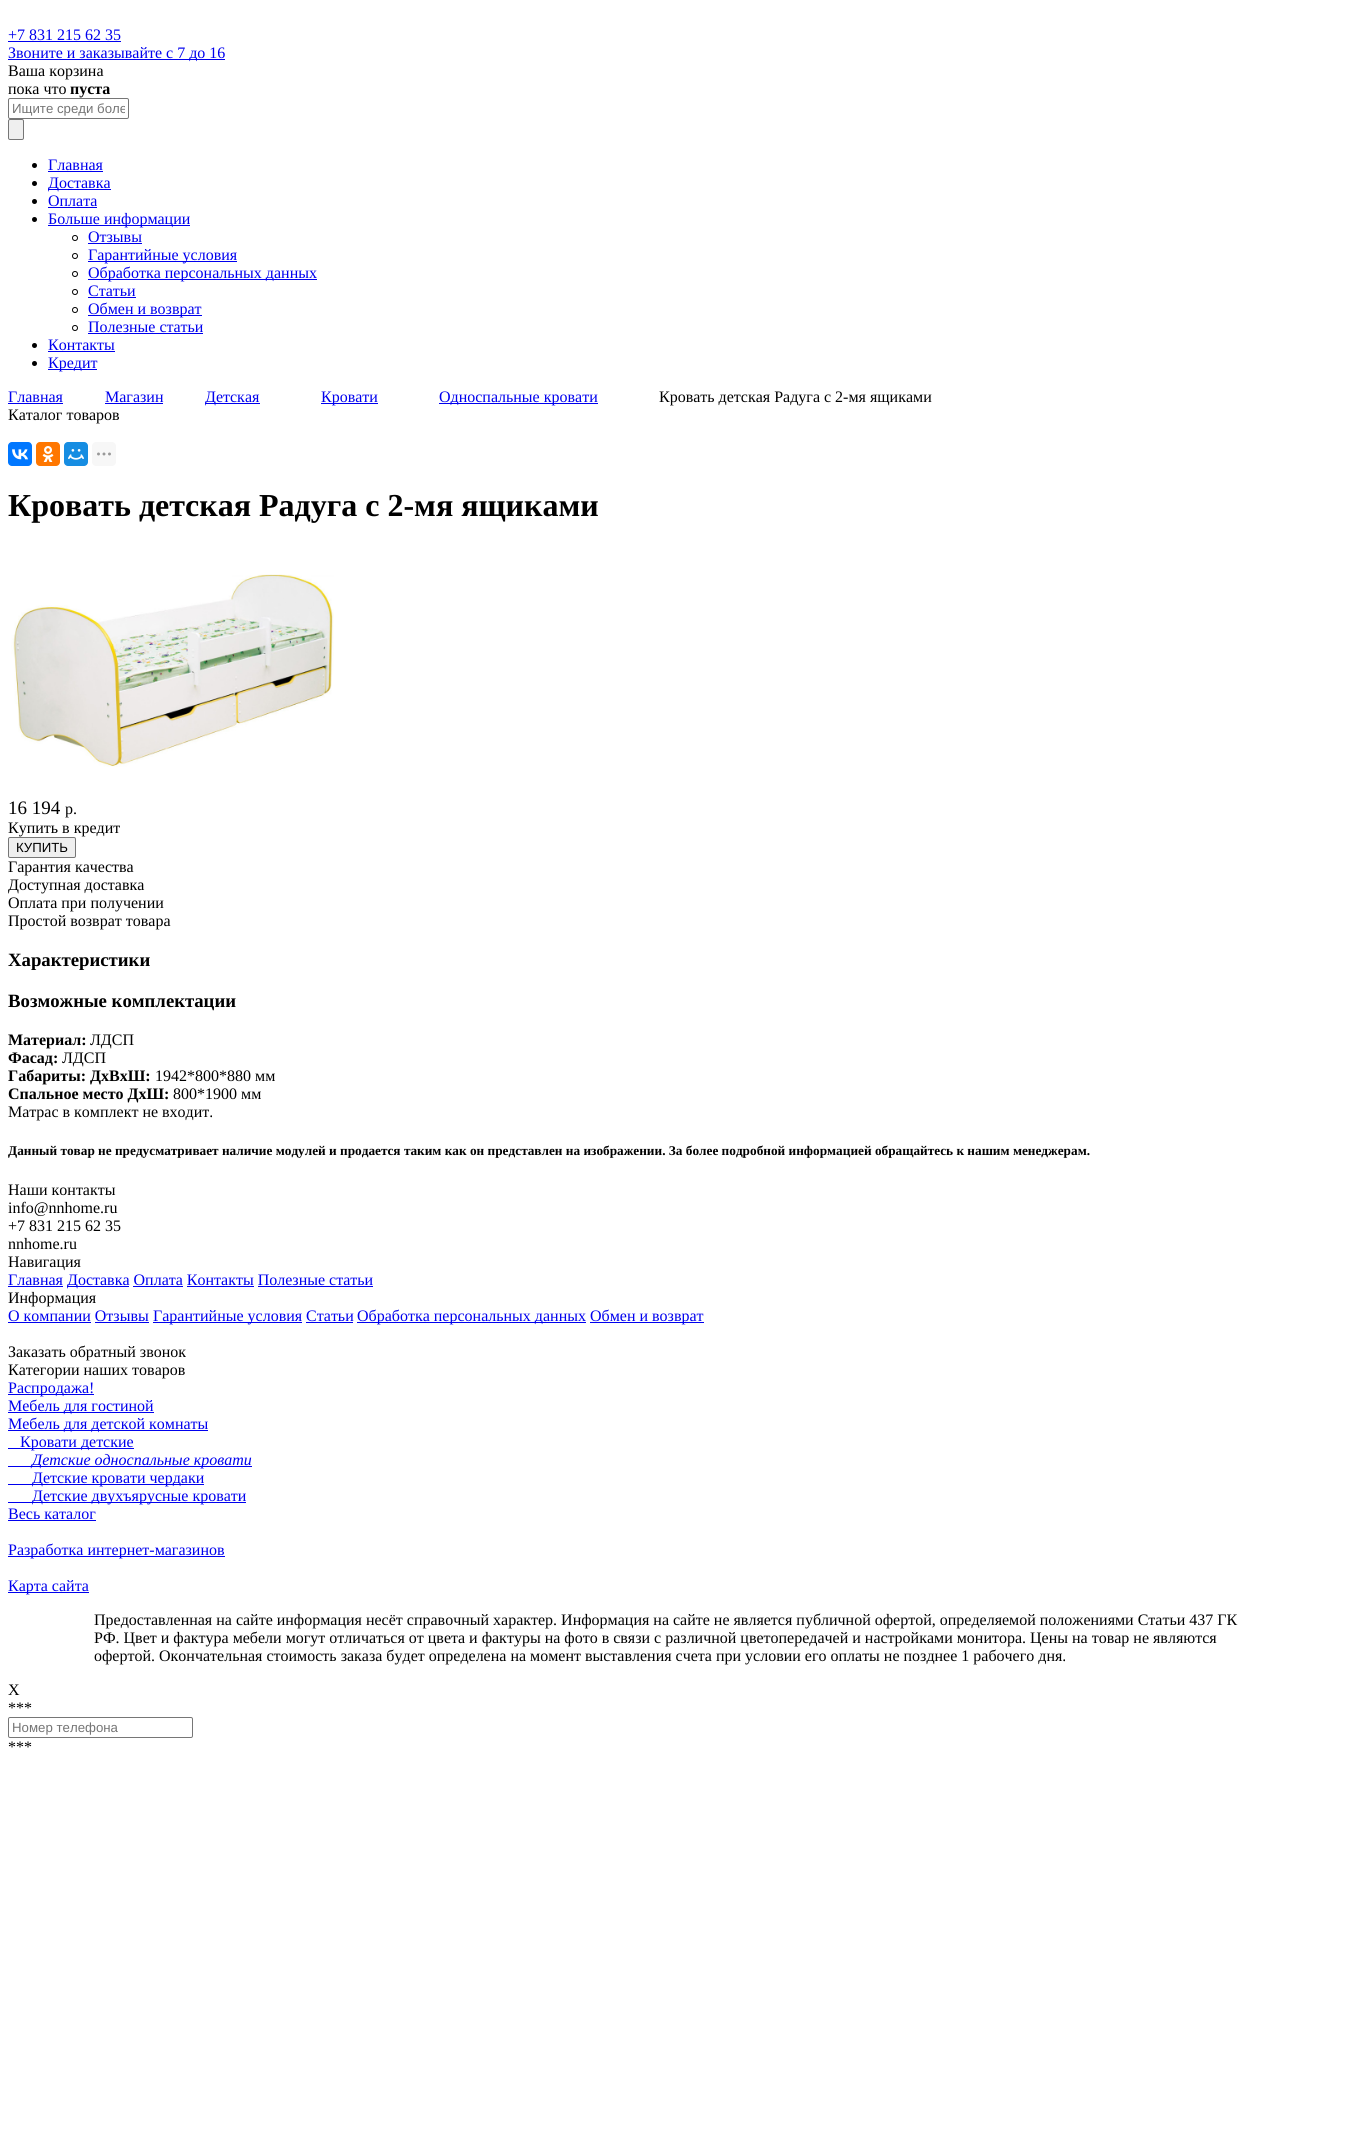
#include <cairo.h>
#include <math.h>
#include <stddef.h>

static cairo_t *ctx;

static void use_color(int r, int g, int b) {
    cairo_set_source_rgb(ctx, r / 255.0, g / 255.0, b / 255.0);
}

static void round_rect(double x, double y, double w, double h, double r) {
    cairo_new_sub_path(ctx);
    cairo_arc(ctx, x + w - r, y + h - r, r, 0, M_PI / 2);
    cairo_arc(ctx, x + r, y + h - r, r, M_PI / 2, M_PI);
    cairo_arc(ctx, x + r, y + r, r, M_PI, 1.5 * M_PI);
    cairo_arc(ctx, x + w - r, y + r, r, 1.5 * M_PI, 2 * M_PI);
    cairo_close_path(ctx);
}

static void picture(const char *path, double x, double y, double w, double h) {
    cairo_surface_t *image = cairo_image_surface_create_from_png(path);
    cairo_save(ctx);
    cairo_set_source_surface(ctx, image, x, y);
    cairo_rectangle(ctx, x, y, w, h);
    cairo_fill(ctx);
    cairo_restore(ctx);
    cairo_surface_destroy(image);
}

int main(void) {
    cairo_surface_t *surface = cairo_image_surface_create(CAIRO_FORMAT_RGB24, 1357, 2141);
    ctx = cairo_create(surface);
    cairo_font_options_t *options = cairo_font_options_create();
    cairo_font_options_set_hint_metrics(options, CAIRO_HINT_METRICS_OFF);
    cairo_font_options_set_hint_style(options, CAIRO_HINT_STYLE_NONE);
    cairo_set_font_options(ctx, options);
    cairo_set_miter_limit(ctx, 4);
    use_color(255, 255, 255);
    cairo_paint(ctx);
    cairo_select_font_face(ctx, "Liberation Serif", CAIRO_FONT_SLANT_NORMAL, CAIRO_FONT_WEIGHT_NORMAL);
    cairo_set_font_size(ctx, 16);
    use_color(0, 0, 238);
    cairo_move_to(ctx, 8, 40);
    cairo_show_text(ctx, "+7 831 215 62 35");
    cairo_rectangle(ctx, 8, 41, 113, 1);
    cairo_fill(ctx);
    cairo_rectangle(ctx, 8, 59, 217, 1);
    cairo_fill(ctx);
    cairo_move_to(ctx, 8, 58);
    cairo_show_text(ctx, "Звоните и заказывайте с 7 до 16");
    use_color(0, 0, 0);
    cairo_move_to(ctx, 8, 76);
    cairo_show_text(ctx, "Ваша корзина");
    cairo_move_to(ctx, 8, 94);
    cairo_show_text(ctx, "пока что");
    cairo_select_font_face(ctx, "Liberation Serif", CAIRO_FONT_SLANT_NORMAL, CAIRO_FONT_WEIGHT_BOLD);
    cairo_move_to(ctx, 70, 94);
    cairo_show_text(ctx, "пуста");
    round_rect(8.5, 98.5, 120, 20, 1.5);
    use_color(118, 118, 118);
    cairo_set_line_width(ctx, 1);
    cairo_stroke(ctx);
    cairo_save(ctx);
    cairo_rectangle(ctx, 12, 101, 113, 15);
    cairo_clip(ctx);
    cairo_select_font_face(ctx, "Liberation Sans", CAIRO_FONT_SLANT_NORMAL, CAIRO_FONT_WEIGHT_NORMAL);
    cairo_set_font_size(ctx, 13.25);
    use_color(117, 117, 117);
    cairo_move_to(ctx, 12, 113);
    cairo_show_text(ctx, "Ищите среди боле");
    cairo_restore(ctx);
    use_color(239, 239, 239);
    round_rect(8.5, 119.5, 15, 20, 1.5);
    cairo_fill_preserve(ctx);
    use_color(118, 118, 118);
    cairo_stroke(ctx);
    use_color(0, 0, 0);
    cairo_arc(ctx, 34.5, 165.5, 2.5, 0, 2 * M_PI);
    cairo_fill(ctx);
    cairo_select_font_face(ctx, "Liberation Serif", CAIRO_FONT_SLANT_NORMAL, CAIRO_FONT_WEIGHT_NORMAL);
    use_color(0, 0, 238);
    cairo_move_to(ctx, 48, 170);
    cairo_show_text(ctx, "Главная");
    cairo_rectangle(ctx, 48, 171, 55, 1);
    cairo_fill(ctx);
    use_color(0, 0, 0);
    cairo_arc(ctx, 34.5, 183.5, 2.5, 0, 2 * M_PI);
    cairo_fill(ctx);
    use_color(0, 0, 238);
    cairo_rectangle(ctx, 48, 189, 63, 1);
    cairo_fill(ctx);
    cairo_move_to(ctx, 48, 188);
    cairo_show_text(ctx, "Доставка");
    use_color(0, 0, 0);
    cairo_new_path(ctx);
    cairo_arc(ctx, 34.5, 201.5, 2.5, 0, 2 * M_PI);
    cairo_fill(ctx);
    use_color(0, 0, 238);
    cairo_move_to(ctx, 48, 206);
    cairo_show_text(ctx, "Оплата");
    cairo_rectangle(ctx, 48, 207, 49, 1);
    cairo_fill(ctx);
    use_color(0, 0, 0);
    cairo_arc(ctx, 34.5, 219.5, 2.5, 0, 2 * M_PI);
    cairo_fill(ctx);
    use_color(0, 0, 238);
    cairo_rectangle(ctx, 48, 225, 142, 1);
    cairo_fill(ctx);
    cairo_move_to(ctx, 48, 224);
    cairo_show_text(ctx, "Больше информации");
    cairo_new_path(ctx);
    cairo_arc(ctx, 75, 238, 2.5, 0, 2 * M_PI);
    use_color(0, 0, 0);
    cairo_stroke(ctx);
    use_color(0, 0, 238);
    cairo_move_to(ctx, 88, 242);
    cairo_show_text(ctx, "Отзывы");
    cairo_rectangle(ctx, 88, 243, 54, 1);
    cairo_fill(ctx);
    cairo_arc(ctx, 75, 256, 2.5, 0, 2 * M_PI);
    use_color(0, 0, 0);
    cairo_stroke(ctx);
    use_color(0, 0, 238);
    cairo_rectangle(ctx, 88, 261, 149, 1);
    cairo_fill(ctx);
    cairo_move_to(ctx, 88, 260);
    cairo_show_text(ctx, "Гарантийные условия");
    cairo_new_path(ctx);
    cairo_arc(ctx, 75, 274, 2.5, 0, 2 * M_PI);
    use_color(0, 0, 0);
    cairo_stroke(ctx);
    use_color(0, 0, 238);
    cairo_rectangle(ctx, 88, 279, 229, 1);
    cairo_fill(ctx);
    cairo_move_to(ctx, 88, 278);
    cairo_show_text(ctx, "Обработка персональных данных");
    cairo_new_path(ctx);
    cairo_arc(ctx, 75, 292, 2.5, 0, 2 * M_PI);
    use_color(0, 0, 0);
    cairo_stroke(ctx);
    use_color(0, 0, 238);
    cairo_move_to(ctx, 88, 296);
    cairo_show_text(ctx, "Статьи");
    cairo_rectangle(ctx, 88, 297, 48, 1);
    cairo_fill(ctx);
    cairo_arc(ctx, 75, 310, 2.5, 0, 2 * M_PI);
    use_color(0, 0, 0);
    cairo_stroke(ctx);
    use_color(0, 0, 238);
    cairo_rectangle(ctx, 88, 315, 114, 1);
    cairo_fill(ctx);
    cairo_move_to(ctx, 88, 314);
    cairo_show_text(ctx, "Обмен и возврат");
    cairo_new_path(ctx);
    cairo_arc(ctx, 75, 328, 2.5, 0, 2 * M_PI);
    use_color(0, 0, 0);
    cairo_stroke(ctx);
    use_color(0, 0, 238);
    cairo_move_to(ctx, 88, 332);
    cairo_show_text(ctx, "Полезные статьи");
    cairo_rectangle(ctx, 88, 333, 115, 1);
    cairo_fill(ctx);
    use_color(0, 0, 0);
    cairo_arc(ctx, 34.5, 345.5, 2.5, 0, 2 * M_PI);
    cairo_fill(ctx);
    use_color(0, 0, 238);
    cairo_move_to(ctx, 48, 350);
    cairo_show_text(ctx, "Контакты");
    cairo_rectangle(ctx, 48, 351, 67, 1);
    cairo_fill(ctx);
    use_color(0, 0, 0);
    cairo_arc(ctx, 34.5, 363.5, 2.5, 0, 2 * M_PI);
    cairo_fill(ctx);
    use_color(0, 0, 238);
    cairo_rectangle(ctx, 48, 369, 49, 1);
    cairo_fill(ctx);
    cairo_move_to(ctx, 48, 368);
    cairo_show_text(ctx, "Кредит");
    cairo_move_to(ctx, 8, 402);
    cairo_show_text(ctx, "Главная");
    cairo_rectangle(ctx, 8, 403, 55, 1);
    cairo_fill(ctx);
    cairo_move_to(ctx, 105, 402);
    cairo_show_text(ctx, "Магазин");
    cairo_rectangle(ctx, 105, 403, 58, 1);
    cairo_fill(ctx);
    cairo_rectangle(ctx, 205, 403, 55, 1);
    cairo_fill(ctx);
    cairo_move_to(ctx, 205, 402);
    cairo_show_text(ctx, "Детская");
    cairo_rectangle(ctx, 321, 403, 57, 1);
    cairo_fill(ctx);
    cairo_move_to(ctx, 321, 402);
    cairo_show_text(ctx, "Кровати");
    cairo_rectangle(ctx, 439, 403, 159, 1);
    cairo_fill(ctx);
    cairo_move_to(ctx, 439, 402);
    cairo_show_text(ctx, "Односпальные кровати");
    use_color(0, 0, 0);
    cairo_move_to(ctx, 659, 402);
    cairo_show_text(ctx, "Кровать детская Радуга с 2-мя ящиками");
    cairo_move_to(ctx, 8, 420);
    cairo_show_text(ctx, "Каталог товаров");
    use_color(0, 119, 255);
    round_rect(8, 442, 24, 24, 4);
    cairo_fill(ctx);
    picture("img1.png", 12, 449, 16, 11);
    use_color(255, 119, 0);
    round_rect(36, 442, 24, 24, 4);
    cairo_fill(ctx);
    picture("img2.png", 42, 446, 12, 16);
    use_color(22, 141, 226);
    round_rect(64, 442, 24, 24, 4);
    cairo_fill(ctx);
    picture("img3.png", 68, 449, 16, 11);
    use_color(247, 247, 247);
    round_rect(92, 442, 24, 24, 4);
    cairo_fill(ctx);
    picture("img4.png", 97, 452, 14, 4);
    cairo_select_font_face(ctx, "Liberation Serif", CAIRO_FONT_SLANT_NORMAL, CAIRO_FONT_WEIGHT_BOLD);
    cairo_set_font_size(ctx, 32);
    use_color(0, 0, 0);
    cairo_move_to(ctx, 8, 516);
    cairo_show_text(ctx, "Кровать детская Радуга с 2-мя ящиками");
    picture("img5.png", 11, 574, 323, 193);
    cairo_select_font_face(ctx, "Liberation Serif", CAIRO_FONT_SLANT_NORMAL, CAIRO_FONT_WEIGHT_NORMAL);
    cairo_set_font_size(ctx, 19);
    cairo_move_to(ctx, 8, 814);
    cairo_show_text(ctx, "16 194");
    cairo_set_font_size(ctx, 16);
    cairo_move_to(ctx, 65, 814);
    cairo_show_text(ctx, "p.");
    cairo_move_to(ctx, 8, 833);
    cairo_show_text(ctx, "Купить в кредит");
    use_color(239, 239, 239);
    round_rect(8.5, 837.5, 67, 20, 1.5);
    cairo_fill_preserve(ctx);
    use_color(118, 118, 118);
    cairo_stroke(ctx);
    cairo_select_font_face(ctx, "Liberation Sans", CAIRO_FONT_SLANT_NORMAL, CAIRO_FONT_WEIGHT_NORMAL);
    cairo_set_font_size(ctx, 13.25);
    use_color(0, 0, 0);
    cairo_move_to(ctx, 16, 852);
    cairo_show_text(ctx, "КУПИТЬ");
    cairo_select_font_face(ctx, "Liberation Serif", CAIRO_FONT_SLANT_NORMAL, CAIRO_FONT_WEIGHT_NORMAL);
    cairo_set_font_size(ctx, 16);
    cairo_move_to(ctx, 8, 872);
    cairo_show_text(ctx, "Гарантия качества");
    cairo_move_to(ctx, 8, 890);
    cairo_show_text(ctx, "Доступная доставка");
    cairo_move_to(ctx, 8, 908);
    cairo_show_text(ctx, "Оплата при получении");
    cairo_move_to(ctx, 8, 926);
    cairo_show_text(ctx, "Простой возврат товара");
    cairo_select_font_face(ctx, "Liberation Serif", CAIRO_FONT_SLANT_NORMAL, CAIRO_FONT_WEIGHT_BOLD);
    cairo_set_font_size(ctx, 18.75);
    cairo_move_to(ctx, 8, 966);
    cairo_show_text(ctx, "Характеристики");
    cairo_move_to(ctx, 8, 1007);
    cairo_show_text(ctx, "Возможные комплектации");
    cairo_set_font_size(ctx, 16);
    cairo_move_to(ctx, 8, 1045);
    cairo_show_text(ctx, "Материал:");
    cairo_select_font_face(ctx, "Liberation Serif", CAIRO_FONT_SLANT_NORMAL, CAIRO_FONT_WEIGHT_NORMAL);
    cairo_move_to(ctx, 90, 1045);
    cairo_show_text(ctx, "ЛДСП");
    cairo_select_font_face(ctx, "Liberation Serif", CAIRO_FONT_SLANT_NORMAL, CAIRO_FONT_WEIGHT_BOLD);
    cairo_move_to(ctx, 8, 1063);
    cairo_show_text(ctx, "Фасад:");
    cairo_select_font_face(ctx, "Liberation Serif", CAIRO_FONT_SLANT_NORMAL, CAIRO_FONT_WEIGHT_NORMAL);
    cairo_move_to(ctx, 62, 1063);
    cairo_show_text(ctx, "ЛДСП");
    cairo_select_font_face(ctx, "Liberation Serif", CAIRO_FONT_SLANT_NORMAL, CAIRO_FONT_WEIGHT_BOLD);
    cairo_move_to(ctx, 8, 1081);
    cairo_show_text(ctx, "Габариты: ДхВхШ:");
    cairo_select_font_face(ctx, "Liberation Serif", CAIRO_FONT_SLANT_NORMAL, CAIRO_FONT_WEIGHT_NORMAL);
    cairo_move_to(ctx, 155, 1081);
    cairo_show_text(ctx, "1942*800*880 мм");
    cairo_select_font_face(ctx, "Liberation Serif", CAIRO_FONT_SLANT_NORMAL, CAIRO_FONT_WEIGHT_BOLD);
    cairo_move_to(ctx, 8, 1099);
    cairo_show_text(ctx, "Спальное место ДхШ:");
    cairo_select_font_face(ctx, "Liberation Serif", CAIRO_FONT_SLANT_NORMAL, CAIRO_FONT_WEIGHT_NORMAL);
    cairo_move_to(ctx, 173, 1099);
    cairo_show_text(ctx, "800*1900 мм");
    cairo_move_to(ctx, 8, 1117);
    cairo_show_text(ctx, "Матрас в комплект не входит.");
    cairo_select_font_face(ctx, "Liberation Serif", CAIRO_FONT_SLANT_NORMAL, CAIRO_FONT_WEIGHT_BOLD);
    cairo_set_font_size(ctx, 13.28);
    cairo_move_to(ctx, 8, 1155);
    cairo_show_text(ctx, "Данный товар не предусматривает наличие модулей и продается таким как он представлен на изображении. За более подробной информацией обращайтесь к нашим менеджерам.");
    cairo_select_font_face(ctx, "Liberation Serif", CAIRO_FONT_SLANT_NORMAL, CAIRO_FONT_WEIGHT_NORMAL);
    cairo_set_font_size(ctx, 16);
    cairo_move_to(ctx, 8, 1195);
    cairo_show_text(ctx, "Наши контакты");
    cairo_move_to(ctx, 8, 1213);
    cairo_show_text(ctx, "info@nnhome.ru");
    cairo_move_to(ctx, 8, 1231);
    cairo_show_text(ctx, "+7 831 215 62 35");
    cairo_move_to(ctx, 8, 1249);
    cairo_show_text(ctx, "nnhome.ru");
    cairo_move_to(ctx, 8, 1267);
    cairo_show_text(ctx, "Навигация");
    use_color(0, 0, 238);
    cairo_move_to(ctx, 8, 1285);
    cairo_show_text(ctx, "Главная");
    cairo_rectangle(ctx, 8, 1286, 55, 1);
    cairo_fill(ctx);
    cairo_rectangle(ctx, 67, 1286, 62, 1);
    cairo_fill(ctx);
    cairo_move_to(ctx, 67, 1285);
    cairo_show_text(ctx, "Доставка Оплата Контакты Полезные статьи");
    cairo_rectangle(ctx, 133, 1286, 50, 1);
    cairo_fill(ctx);
    cairo_rectangle(ctx, 187, 1286, 67, 1);
    cairo_fill(ctx);
    cairo_rectangle(ctx, 258, 1286, 115, 1);
    cairo_fill(ctx);
    use_color(0, 0, 0);
    cairo_move_to(ctx, 8, 1303);
    cairo_show_text(ctx, "Информация");
    use_color(0, 0, 238);
    cairo_move_to(ctx, 8, 1321);
    cairo_show_text(ctx, "О компании Отзывы");
    cairo_rectangle(ctx, 8, 1322, 83, 1);
    cairo_fill(ctx);
    cairo_rectangle(ctx, 153, 1322, 149, 1);
    cairo_fill(ctx);
    cairo_move_to(ctx, 153, 1321);
    cairo_show_text(ctx, "Гарантийные условия Статьи");
    cairo_rectangle(ctx, 357, 1322, 229, 1);
    cairo_fill(ctx);
    cairo_move_to(ctx, 357, 1321);
    cairo_show_text(ctx, "Обработка персональных данных");
    cairo_rectangle(ctx, 590, 1322, 114, 1);
    cairo_fill(ctx);
    cairo_move_to(ctx, 590, 1321);
    cairo_show_text(ctx, "Обмен и возврат");
    cairo_rectangle(ctx, 95, 1322, 54, 1);
    cairo_fill(ctx);
    cairo_rectangle(ctx, 306, 1322, 47, 1);
    cairo_fill(ctx);
    use_color(0, 0, 0);
    cairo_move_to(ctx, 8, 1357);
    cairo_show_text(ctx, "Заказать обратный звонок");
    cairo_move_to(ctx, 8, 1375);
    cairo_show_text(ctx, "Категории наших товаров");
    use_color(0, 0, 238);
    cairo_rectangle(ctx, 8, 1394, 86, 1);
    cairo_fill(ctx);
    cairo_move_to(ctx, 8, 1393);
    cairo_show_text(ctx, "Распродажа!");
    cairo_rectangle(ctx, 8, 1412, 146, 1);
    cairo_fill(ctx);
    cairo_move_to(ctx, 8, 1411);
    cairo_show_text(ctx, "Мебель для гостиной");
    cairo_rectangle(ctx, 8, 1430, 200, 1);
    cairo_fill(ctx);
    cairo_move_to(ctx, 8, 1429);
    cairo_show_text(ctx, "Мебель для детской комнаты");
    cairo_rectangle(ctx, 8, 1448, 126, 1);
    cairo_fill(ctx);
    cairo_move_to(ctx, 20, 1447);
    cairo_show_text(ctx, "Кровати детские");
    cairo_rectangle(ctx, 8, 1466, 244, 1);
    cairo_fill(ctx);
    cairo_select_font_face(ctx, "Liberation Serif", CAIRO_FONT_SLANT_ITALIC, CAIRO_FONT_WEIGHT_NORMAL);
    cairo_move_to(ctx, 32, 1465);
    cairo_show_text(ctx, "Детские односпальные кровати");
    cairo_rectangle(ctx, 8, 1484, 196, 1);
    cairo_fill(ctx);
    cairo_select_font_face(ctx, "Liberation Serif", CAIRO_FONT_SLANT_NORMAL, CAIRO_FONT_WEIGHT_NORMAL);
    cairo_move_to(ctx, 32, 1483);
    cairo_show_text(ctx, "Детские кровати чердаки");
    cairo_rectangle(ctx, 8, 1502, 238, 1);
    cairo_fill(ctx);
    cairo_move_to(ctx, 32, 1501);
    cairo_show_text(ctx, "Детские двухъярусные кровати");
    cairo_move_to(ctx, 8, 1519);
    cairo_show_text(ctx, "Весь каталог");
    cairo_rectangle(ctx, 8, 1520, 88, 1);
    cairo_fill(ctx);
    cairo_rectangle(ctx, 8, 1556, 217, 1);
    cairo_fill(ctx);
    cairo_move_to(ctx, 8, 1555);
    cairo_show_text(ctx, "Разработка интернет-магазинов");
    cairo_rectangle(ctx, 8, 1592, 81, 1);
    cairo_fill(ctx);
    cairo_move_to(ctx, 8, 1591);
    cairo_show_text(ctx, "Карта сайта");
    use_color(0, 0, 0);
    cairo_move_to(ctx, 94, 1625);
    cairo_show_text(ctx, "Предоставленная на сайте информация несёт справочный характер. Информация на сайте не является публичной офертой, определяемой положениями Статьи 437 ГК");
    cairo_move_to(ctx, 94, 1643);
    cairo_show_text(ctx, "РФ. Цвет и фактура мебели могут отличаться от цвета и фактуры на фото в связи с различной цветопередачей и настройками монитора. Цены на товар не являются");
    cairo_move_to(ctx, 94, 1661);
    cairo_show_text(ctx, "офертой. Окончательная стоимость заказа будет определена на момент выставления счета при условии его оплаты не позднее 1 рабочего дня.");
    cairo_move_to(ctx, 8, 1695);
    cairo_show_text(ctx, "X");
    cairo_move_to(ctx, 8, 1713);
    cairo_show_text(ctx, "***");
    round_rect(8.5, 1717.5, 184, 20, 1.5);
    use_color(118, 118, 118);
    cairo_stroke(ctx);
    cairo_select_font_face(ctx, "Liberation Sans", CAIRO_FONT_SLANT_NORMAL, CAIRO_FONT_WEIGHT_NORMAL);
    cairo_set_font_size(ctx, 13.25);
    use_color(117, 117, 117);
    cairo_move_to(ctx, 12, 1732);
    cairo_show_text(ctx, "Номер телефона");
    cairo_select_font_face(ctx, "Liberation Serif", CAIRO_FONT_SLANT_NORMAL, CAIRO_FONT_WEIGHT_NORMAL);
    cairo_set_font_size(ctx, 16);
    use_color(0, 0, 0);
    cairo_move_to(ctx, 8, 1752);
    cairo_show_text(ctx, "***");
    cairo_surface_write_to_png(surface, "result.png");
    cairo_font_options_destroy(options);
    cairo_destroy(ctx);
    cairo_surface_destroy(surface);
    return 0;
}
